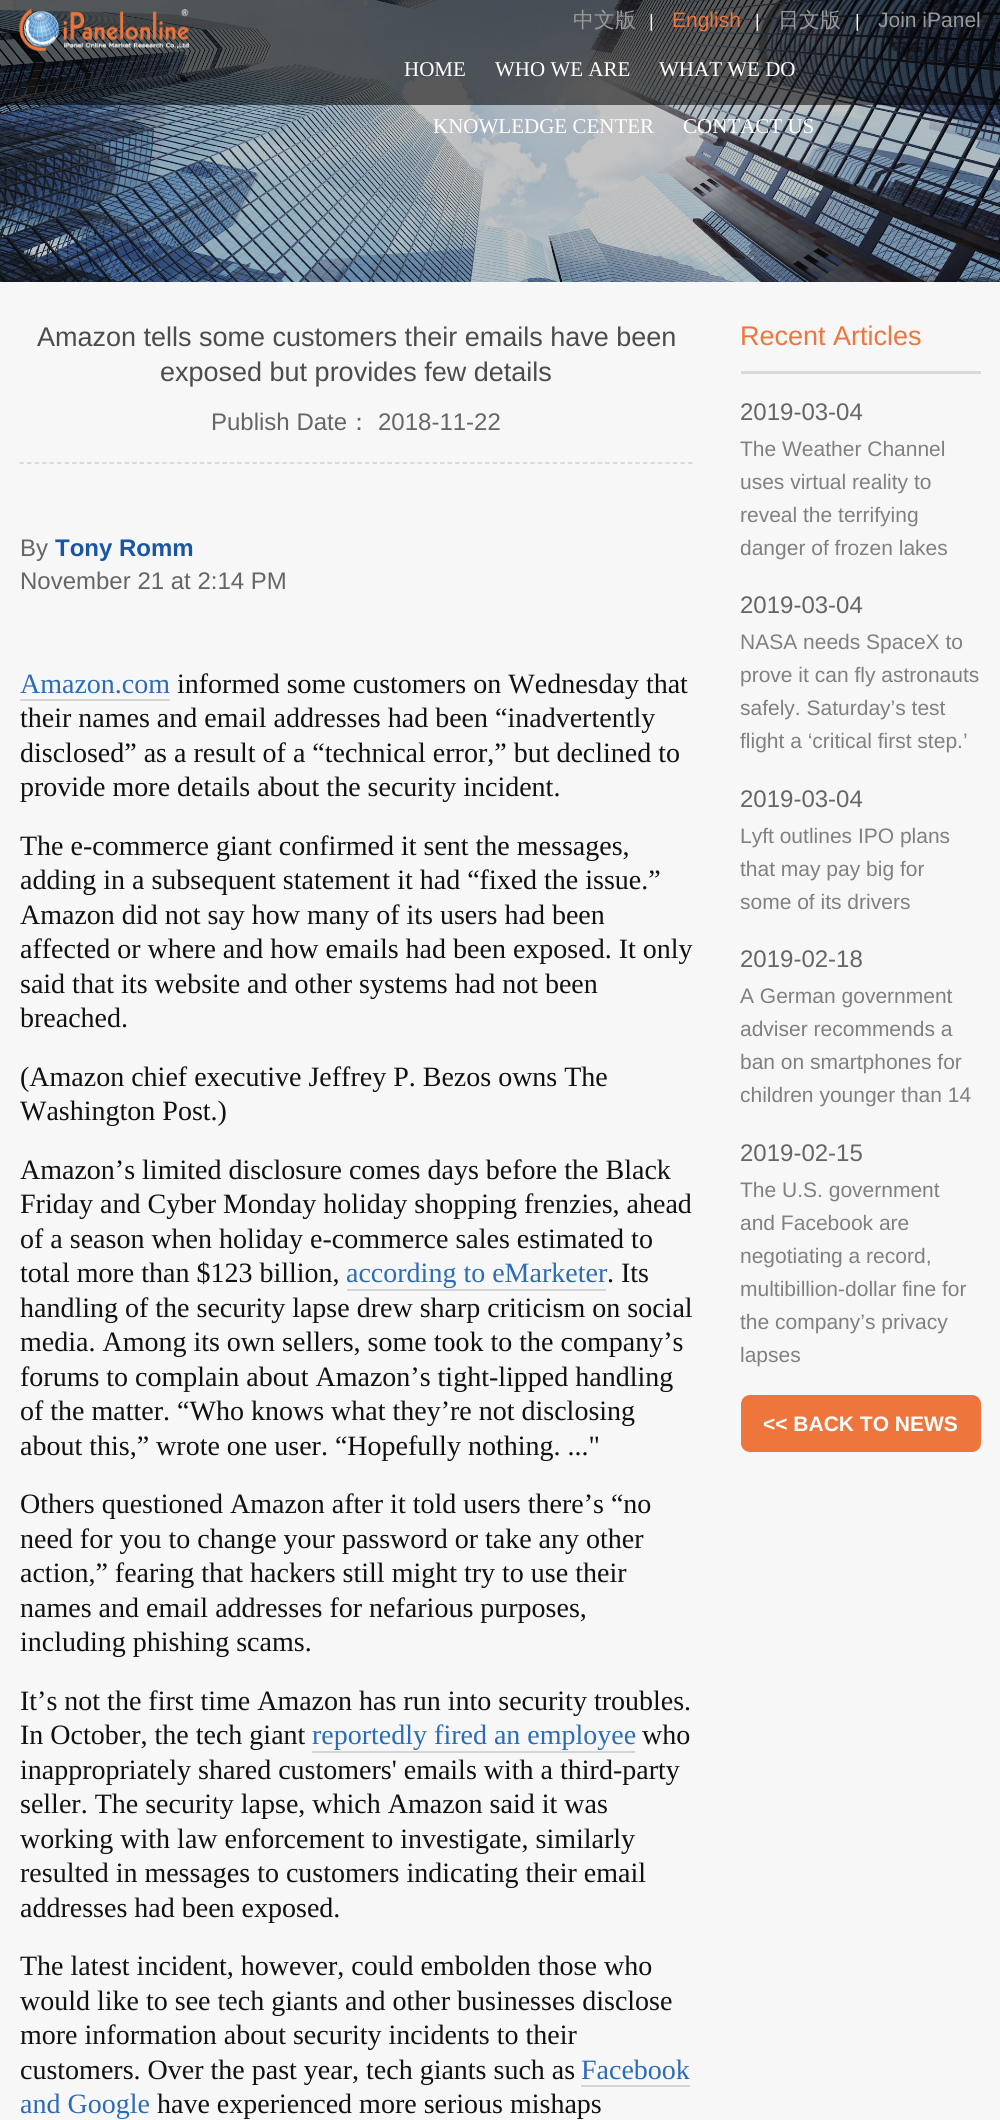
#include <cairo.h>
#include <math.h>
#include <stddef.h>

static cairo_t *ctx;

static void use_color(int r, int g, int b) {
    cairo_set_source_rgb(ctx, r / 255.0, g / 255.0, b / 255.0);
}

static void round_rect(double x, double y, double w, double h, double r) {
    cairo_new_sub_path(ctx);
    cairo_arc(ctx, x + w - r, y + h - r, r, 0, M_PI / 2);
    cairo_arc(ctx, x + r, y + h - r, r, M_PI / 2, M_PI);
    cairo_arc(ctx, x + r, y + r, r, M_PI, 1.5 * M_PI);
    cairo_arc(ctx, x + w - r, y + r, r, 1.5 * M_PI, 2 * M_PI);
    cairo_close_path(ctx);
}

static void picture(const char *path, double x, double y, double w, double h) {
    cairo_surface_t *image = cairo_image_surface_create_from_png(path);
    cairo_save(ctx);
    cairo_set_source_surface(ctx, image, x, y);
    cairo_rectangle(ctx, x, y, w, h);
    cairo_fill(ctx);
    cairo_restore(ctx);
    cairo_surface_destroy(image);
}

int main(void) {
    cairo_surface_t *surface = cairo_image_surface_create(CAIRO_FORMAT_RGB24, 1000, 2120);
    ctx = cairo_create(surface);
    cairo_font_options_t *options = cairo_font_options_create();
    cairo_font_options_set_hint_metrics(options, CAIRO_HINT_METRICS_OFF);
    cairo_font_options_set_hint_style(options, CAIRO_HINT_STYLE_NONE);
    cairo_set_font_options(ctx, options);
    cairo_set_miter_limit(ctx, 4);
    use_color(247, 247, 247);
    cairo_paint(ctx);
    picture("img1.png", 0, 0, 1000, 282);
    cairo_set_source_rgba(ctx, 0, 0, 0, 0.54);
    cairo_rectangle(ctx, 0, 0, 1000, 105);
    cairo_fill(ctx);
    picture("img2.png", 19, 9, 170, 42);
    cairo_select_font_face(ctx, "WenQuanYi Zen Hei Medium", CAIRO_FONT_SLANT_NORMAL, CAIRO_FONT_WEIGHT_NORMAL);
    cairo_set_font_size(ctx, 21);
    use_color(153, 153, 153);
    cairo_move_to(ctx, 573, 27);
    cairo_show_text(ctx, "中文版");
    cairo_select_font_face(ctx, "Liberation Sans", CAIRO_FONT_SLANT_NORMAL, CAIRO_FONT_WEIGHT_NORMAL);
    cairo_set_font_size(ctx, 18);
    use_color(255, 255, 255);
    cairo_move_to(ctx, 649, 27);
    cairo_show_text(ctx, "|");
    cairo_set_font_size(ctx, 21);
    use_color(238, 117, 59);
    cairo_move_to(ctx, 672, 27);
    cairo_show_text(ctx, "English");
    cairo_set_font_size(ctx, 18);
    use_color(255, 255, 255);
    cairo_move_to(ctx, 755, 27);
    cairo_show_text(ctx, "|");
    cairo_select_font_face(ctx, "WenQuanYi Zen Hei Medium", CAIRO_FONT_SLANT_NORMAL, CAIRO_FONT_WEIGHT_NORMAL);
    cairo_set_font_size(ctx, 21);
    use_color(153, 153, 153);
    cairo_move_to(ctx, 778, 27);
    cairo_show_text(ctx, "日文版");
    cairo_select_font_face(ctx, "Liberation Sans", CAIRO_FONT_SLANT_NORMAL, CAIRO_FONT_WEIGHT_NORMAL);
    cairo_set_font_size(ctx, 18);
    use_color(255, 255, 255);
    cairo_move_to(ctx, 855, 27);
    cairo_show_text(ctx, "|");
    cairo_set_font_size(ctx, 21);
    use_color(153, 153, 153);
    cairo_move_to(ctx, 878, 27);
    cairo_show_text(ctx, "Join iPanel");
    cairo_select_font_face(ctx, "Liberation Serif", CAIRO_FONT_SLANT_NORMAL, CAIRO_FONT_WEIGHT_NORMAL);
    use_color(255, 255, 255);
    cairo_move_to(ctx, 404, 76);
    cairo_show_text(ctx, "HOME");
    cairo_move_to(ctx, 495, 76);
    cairo_show_text(ctx, "WHO WE ARE");
    cairo_move_to(ctx, 659, 76);
    cairo_show_text(ctx, "WHAT WE DO");
    cairo_move_to(ctx, 433, 133);
    cairo_show_text(ctx, "KNOWLEDGE CENTER");
    cairo_move_to(ctx, 683, 133);
    cairo_show_text(ctx, "CONTACT US");
    cairo_select_font_face(ctx, "Liberation Sans", CAIRO_FONT_SLANT_NORMAL, CAIRO_FONT_WEIGHT_NORMAL);
    cairo_set_font_size(ctx, 27);
    use_color(76, 76, 76);
    cairo_move_to(ctx, 37, 346);
    cairo_show_text(ctx, "Amazon tells some customers their emails have been");
    cairo_move_to(ctx, 160, 381);
    cairo_show_text(ctx, "exposed but provides few details");
    cairo_new_path(ctx);
    cairo_move_to(ctx, 19.5, 463);
    cairo_line_to(ctx, 693, 463);
    use_color(209, 209, 209);
    cairo_set_line_width(ctx, 1.5);
    cairo_set_dash(ctx, (double[]){4.5, 3.01}, 2, 0);
    cairo_stroke(ctx);
    cairo_set_font_size(ctx, 24);
    use_color(102, 102, 102);
    cairo_move_to(ctx, 211, 430);
    cairo_show_text(ctx, "Publish Date");
    cairo_select_font_face(ctx, "WenQuanYi Zen Hei Medium", CAIRO_FONT_SLANT_NORMAL, CAIRO_FONT_WEIGHT_NORMAL);
    cairo_move_to(ctx, 347, 430);
    cairo_show_text(ctx, "：");
    cairo_select_font_face(ctx, "Liberation Sans", CAIRO_FONT_SLANT_NORMAL, CAIRO_FONT_WEIGHT_NORMAL);
    cairo_move_to(ctx, 378, 430);
    cairo_show_text(ctx, "2018-11-22");
    cairo_move_to(ctx, 20, 556);
    cairo_show_text(ctx, "By");
    cairo_select_font_face(ctx, "Liberation Sans", CAIRO_FONT_SLANT_NORMAL, CAIRO_FONT_WEIGHT_BOLD);
    use_color(25, 85, 165);
    cairo_move_to(ctx, 55, 556);
    cairo_show_text(ctx, "Tony Romm");
    cairo_select_font_face(ctx, "Liberation Sans", CAIRO_FONT_SLANT_NORMAL, CAIRO_FONT_WEIGHT_NORMAL);
    use_color(102, 102, 102);
    cairo_move_to(ctx, 20, 589);
    cairo_show_text(ctx, "November 21 at 2:14 PM");
    cairo_select_font_face(ctx, "Liberation Serif", CAIRO_FONT_SLANT_NORMAL, CAIRO_FONT_WEIGHT_NORMAL);
    cairo_set_font_size(ctx, 28);
    use_color(44, 108, 180);
    cairo_move_to(ctx, 20, 693);
    cairo_show_text(ctx, "Amazon.com");
    use_color(213, 213, 213);
    cairo_rectangle(ctx, 20, 699, 150, 2);
    cairo_fill(ctx);
    use_color(17, 17, 17);
    cairo_move_to(ctx, 177, 693);
    cairo_show_text(ctx, "informed some customers on Wednesday that");
    cairo_move_to(ctx, 20, 727);
    cairo_show_text(ctx, "their names and email addresses had been “inadvertently");
    cairo_move_to(ctx, 20, 762);
    cairo_show_text(ctx, "disclosed” as a result of a “technical error,” but declined to");
    cairo_move_to(ctx, 20, 796);
    cairo_show_text(ctx, "provide more details about the security incident.");
    cairo_move_to(ctx, 20, 855);
    cairo_show_text(ctx, "The e-commerce giant confirmed it sent the messages,");
    cairo_move_to(ctx, 20, 889);
    cairo_show_text(ctx, "adding in a subsequent statement it had “fixed the issue.”");
    cairo_move_to(ctx, 20, 924);
    cairo_show_text(ctx, "Amazon did not say how many of its users had been");
    cairo_move_to(ctx, 20, 958);
    cairo_show_text(ctx, "affected or where and how emails had been exposed. It only");
    cairo_move_to(ctx, 20, 993);
    cairo_show_text(ctx, "said that its website and other systems had not been");
    cairo_move_to(ctx, 20, 1027);
    cairo_show_text(ctx, "breached.");
    cairo_move_to(ctx, 20, 1086);
    cairo_show_text(ctx, "(Amazon chief executive Jeffrey P. Bezos owns The");
    cairo_move_to(ctx, 20, 1120);
    cairo_show_text(ctx, "Washington Post.)");
    cairo_move_to(ctx, 20, 1179);
    cairo_show_text(ctx, "Amazon’s limited disclosure comes days before the Black");
    cairo_move_to(ctx, 20, 1213);
    cairo_show_text(ctx, "Friday and Cyber Monday holiday shopping frenzies, ahead");
    cairo_move_to(ctx, 20, 1248);
    cairo_show_text(ctx, "of a season when holiday e-commerce sales estimated to");
    cairo_move_to(ctx, 20, 1282);
    cairo_show_text(ctx, "total more than $123 billion,");
    use_color(44, 108, 180);
    cairo_move_to(ctx, 346, 1282);
    cairo_show_text(ctx, "according to eMarketer");
    use_color(213, 213, 213);
    cairo_rectangle(ctx, 347, 1289, 259, 2);
    cairo_fill(ctx);
    use_color(17, 17, 17);
    cairo_move_to(ctx, 607, 1282);
    cairo_show_text(ctx, ". Its");
    cairo_move_to(ctx, 20, 1317);
    cairo_show_text(ctx, "handling of the security lapse drew sharp criticism on social");
    cairo_move_to(ctx, 20, 1351);
    cairo_show_text(ctx, "media. Among its own sellers, some took to the company’s");
    cairo_move_to(ctx, 20, 1386);
    cairo_show_text(ctx, "forums to complain about Amazon’s tight-lipped handling");
    cairo_move_to(ctx, 20, 1420);
    cairo_show_text(ctx, "of the matter. “Who knows what they’re not disclosing");
    cairo_move_to(ctx, 20, 1455);
    cairo_show_text(ctx, "about this,” wrote one user. “Hopefully nothing. ...\"");
    cairo_move_to(ctx, 20, 1513);
    cairo_show_text(ctx, "Others questioned Amazon after it told users there’s “no");
    cairo_move_to(ctx, 20, 1548);
    cairo_show_text(ctx, "need for you to change your password or take any other");
    cairo_move_to(ctx, 20, 1582);
    cairo_show_text(ctx, "action,” fearing that hackers still might try to use their");
    cairo_move_to(ctx, 20, 1617);
    cairo_show_text(ctx, "names and email addresses for nefarious purposes,");
    cairo_move_to(ctx, 20, 1651);
    cairo_show_text(ctx, "including phishing scams.");
    cairo_move_to(ctx, 20, 1710);
    cairo_show_text(ctx, "It’s not the first time Amazon has run into security troubles.");
    cairo_move_to(ctx, 20, 1744);
    cairo_show_text(ctx, "In October, the tech giant");
    use_color(44, 108, 180);
    cairo_move_to(ctx, 312, 1744);
    cairo_show_text(ctx, "reportedly fired an employee");
    use_color(213, 213, 213);
    cairo_rectangle(ctx, 312, 1751, 323, 2);
    cairo_fill(ctx);
    use_color(17, 17, 17);
    cairo_move_to(ctx, 642, 1744);
    cairo_show_text(ctx, "who");
    cairo_move_to(ctx, 20, 1779);
    cairo_show_text(ctx, "inappropriately shared customers' emails with a third-party");
    cairo_move_to(ctx, 20, 1813);
    cairo_show_text(ctx, "seller. The security lapse, which Amazon said it was");
    cairo_move_to(ctx, 20, 1848);
    cairo_show_text(ctx, "working with law enforcement to investigate, similarly");
    cairo_move_to(ctx, 20, 1882);
    cairo_show_text(ctx, "resulted in messages to customers indicating their email");
    cairo_move_to(ctx, 20, 1917);
    cairo_show_text(ctx, "addresses had been exposed.");
    cairo_move_to(ctx, 20, 1975);
    cairo_show_text(ctx, "The latest incident, however, could embolden those who");
    cairo_move_to(ctx, 20, 2010);
    cairo_show_text(ctx, "would like to see tech giants and other businesses disclose");
    cairo_move_to(ctx, 20, 2044);
    cairo_show_text(ctx, "more information about security incidents to their");
    cairo_move_to(ctx, 20, 2079);
    cairo_show_text(ctx, "customers. Over the past year, tech giants such as");
    use_color(44, 108, 180);
    cairo_move_to(ctx, 581, 2079);
    cairo_show_text(ctx, "Facebook");
    use_color(213, 213, 213);
    cairo_rectangle(ctx, 581, 2085, 109, 2);
    cairo_fill(ctx);
    use_color(44, 108, 180);
    cairo_move_to(ctx, 20, 2113);
    cairo_show_text(ctx, "and Google");
    use_color(17, 17, 17);
    cairo_move_to(ctx, 157, 2113);
    cairo_show_text(ctx, "have experienced more serious mishaps");
    use_color(217, 217, 217);
    cairo_rectangle(ctx, 741, 371, 240, 3);
    cairo_fill(ctx);
    cairo_select_font_face(ctx, "Liberation Sans", CAIRO_FONT_SLANT_NORMAL, CAIRO_FONT_WEIGHT_NORMAL);
    cairo_set_font_size(ctx, 27);
    use_color(238, 117, 59);
    cairo_move_to(ctx, 740, 345);
    cairo_show_text(ctx, "Recent Articles");
    cairo_set_font_size(ctx, 24);
    use_color(102, 102, 102);
    cairo_move_to(ctx, 740, 420);
    cairo_show_text(ctx, "2019-03-04");
    cairo_set_font_size(ctx, 21);
    use_color(128, 128, 128);
    cairo_move_to(ctx, 740, 456);
    cairo_show_text(ctx, "The Weather Channel");
    cairo_move_to(ctx, 740, 489);
    cairo_show_text(ctx, "uses virtual reality to");
    cairo_move_to(ctx, 740, 522);
    cairo_show_text(ctx, "reveal the terrifying");
    cairo_move_to(ctx, 740, 555);
    cairo_show_text(ctx, "danger of frozen lakes");
    cairo_set_font_size(ctx, 24);
    use_color(102, 102, 102);
    cairo_move_to(ctx, 740, 613);
    cairo_show_text(ctx, "2019-03-04");
    cairo_set_font_size(ctx, 21);
    use_color(128, 128, 128);
    cairo_move_to(ctx, 740, 649);
    cairo_show_text(ctx, "NASA needs SpaceX to");
    cairo_move_to(ctx, 740, 682);
    cairo_show_text(ctx, "prove it can fly astronauts");
    cairo_move_to(ctx, 740, 715);
    cairo_show_text(ctx, "safely. Saturday’s test");
    cairo_move_to(ctx, 740, 748);
    cairo_show_text(ctx, "flight a ‘critical first step.’");
    cairo_set_font_size(ctx, 24);
    use_color(102, 102, 102);
    cairo_move_to(ctx, 740, 807);
    cairo_show_text(ctx, "2019-03-04");
    cairo_set_font_size(ctx, 21);
    use_color(128, 128, 128);
    cairo_move_to(ctx, 740, 843);
    cairo_show_text(ctx, "Lyft outlines IPO plans");
    cairo_move_to(ctx, 740, 876);
    cairo_show_text(ctx, "that may pay big for");
    cairo_move_to(ctx, 740, 909);
    cairo_show_text(ctx, "some of its drivers");
    cairo_set_font_size(ctx, 24);
    use_color(102, 102, 102);
    cairo_move_to(ctx, 740, 967);
    cairo_show_text(ctx, "2019-02-18");
    cairo_set_font_size(ctx, 21);
    use_color(128, 128, 128);
    cairo_move_to(ctx, 740, 1003);
    cairo_show_text(ctx, "A German government");
    cairo_move_to(ctx, 740, 1036);
    cairo_show_text(ctx, "adviser recommends a");
    cairo_move_to(ctx, 740, 1069);
    cairo_show_text(ctx, "ban on smartphones for");
    cairo_move_to(ctx, 740, 1102);
    cairo_show_text(ctx, "children younger than 14");
    cairo_set_font_size(ctx, 24);
    use_color(102, 102, 102);
    cairo_move_to(ctx, 740, 1161);
    cairo_show_text(ctx, "2019-02-15");
    cairo_set_font_size(ctx, 21);
    use_color(128, 128, 128);
    cairo_move_to(ctx, 740, 1197);
    cairo_show_text(ctx, "The U.S. government");
    cairo_move_to(ctx, 740, 1230);
    cairo_show_text(ctx, "and Facebook are");
    cairo_move_to(ctx, 740, 1263);
    cairo_show_text(ctx, "negotiating a record,");
    cairo_move_to(ctx, 740, 1296);
    cairo_show_text(ctx, "multibillion-dollar fine for");
    cairo_move_to(ctx, 740, 1329);
    cairo_show_text(ctx, "the company’s privacy");
    cairo_move_to(ctx, 740, 1362);
    cairo_show_text(ctx, "lapses");
    use_color(238, 117, 59);
    round_rect(741, 1395, 240, 57, 9);
    cairo_fill(ctx);
    cairo_select_font_face(ctx, "Liberation Sans", CAIRO_FONT_SLANT_NORMAL, CAIRO_FONT_WEIGHT_BOLD);
    use_color(255, 255, 255);
    cairo_move_to(ctx, 763, 1431);
    cairo_show_text(ctx, "<< BACK TO NEWS");
    cairo_surface_write_to_png(surface, "result.png");
    cairo_font_options_destroy(options);
    cairo_destroy(ctx);
    cairo_surface_destroy(surface);
    return 0;
}
